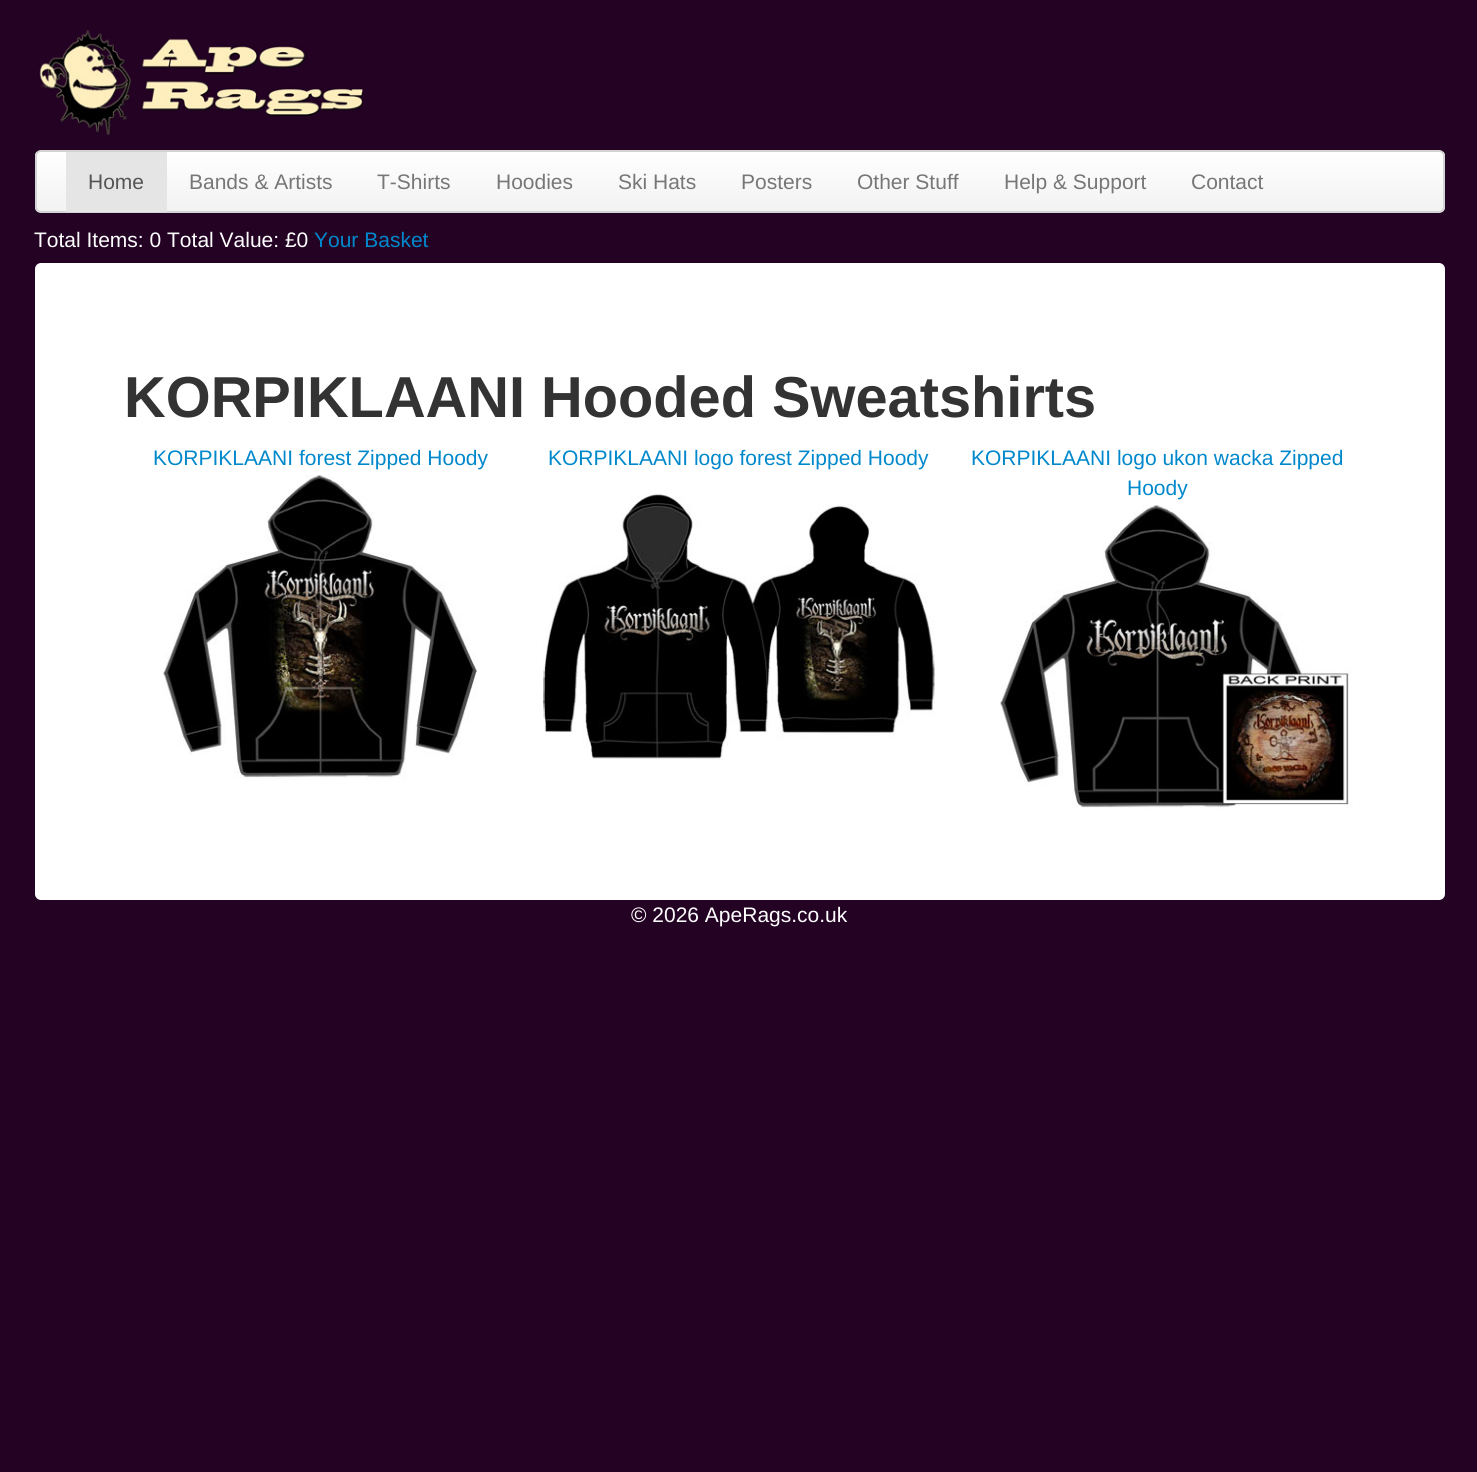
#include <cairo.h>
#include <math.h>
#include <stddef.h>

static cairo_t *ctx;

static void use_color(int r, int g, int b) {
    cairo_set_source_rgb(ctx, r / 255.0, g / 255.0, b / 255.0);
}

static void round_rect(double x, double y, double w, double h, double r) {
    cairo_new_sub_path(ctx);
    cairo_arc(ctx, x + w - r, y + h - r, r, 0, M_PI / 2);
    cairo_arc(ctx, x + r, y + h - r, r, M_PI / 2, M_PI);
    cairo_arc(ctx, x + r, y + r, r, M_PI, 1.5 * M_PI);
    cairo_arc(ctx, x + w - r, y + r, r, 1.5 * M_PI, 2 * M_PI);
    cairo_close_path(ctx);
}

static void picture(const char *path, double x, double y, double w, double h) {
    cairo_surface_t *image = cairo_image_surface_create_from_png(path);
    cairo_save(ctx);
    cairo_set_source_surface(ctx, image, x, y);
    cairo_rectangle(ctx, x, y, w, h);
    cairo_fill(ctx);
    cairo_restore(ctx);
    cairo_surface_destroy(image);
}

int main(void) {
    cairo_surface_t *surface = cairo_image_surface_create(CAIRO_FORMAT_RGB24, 1477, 1472);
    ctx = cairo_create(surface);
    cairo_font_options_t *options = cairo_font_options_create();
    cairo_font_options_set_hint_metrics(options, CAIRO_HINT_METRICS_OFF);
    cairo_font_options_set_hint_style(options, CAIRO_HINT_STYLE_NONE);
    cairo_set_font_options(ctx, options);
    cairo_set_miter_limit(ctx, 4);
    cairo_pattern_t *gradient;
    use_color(36, 2, 36);
    cairo_paint(ctx);
    picture("img1.png", 38, 30, 325, 105);
    cairo_save(ctx);
    round_rect(35, 150, 1410, 63, 6);
    cairo_clip(ctx);
    gradient = cairo_pattern_create_linear(740, 151, 740, 212);
    cairo_pattern_add_color_stop_rgba(gradient, 0, 1, 1, 1, 1);
    cairo_pattern_add_color_stop_rgba(gradient, 1, 0.949, 0.949, 0.949, 1);
    cairo_set_source(ctx, gradient);
    cairo_pattern_destroy(gradient);
    cairo_rectangle(ctx, 35, 152, 1410, 60);
    cairo_fill(ctx);
    cairo_restore(ctx);
    round_rect(36, 151, 1408, 61, 5);
    use_color(212, 212, 212);
    cairo_stroke(ctx);
    use_color(229, 229, 229);
    cairo_rectangle(ctx, 66, 152, 101, 60);
    cairo_fill(ctx);
    cairo_select_font_face(ctx, "Liberation Sans", CAIRO_FONT_SLANT_NORMAL, CAIRO_FONT_WEIGHT_NORMAL);
    cairo_set_font_size(ctx, 21);
    use_color(85, 85, 85);
    cairo_move_to(ctx, 88, 189);
    cairo_show_text(ctx, "Home");
    use_color(119, 119, 119);
    cairo_move_to(ctx, 189, 189);
    cairo_show_text(ctx, "Bands & Artists");
    cairo_move_to(ctx, 377, 189);
    cairo_show_text(ctx, "T-Shirts");
    cairo_move_to(ctx, 496, 189);
    cairo_show_text(ctx, "Hoodies");
    cairo_move_to(ctx, 618, 189);
    cairo_show_text(ctx, "Ski Hats");
    cairo_move_to(ctx, 741, 189);
    cairo_show_text(ctx, "Posters");
    cairo_move_to(ctx, 857, 189);
    cairo_show_text(ctx, "Other Stuff");
    cairo_move_to(ctx, 1004, 189);
    cairo_show_text(ctx, "Help & Support");
    cairo_move_to(ctx, 1191, 189);
    cairo_show_text(ctx, "Contact");
    use_color(255, 255, 255);
    cairo_move_to(ctx, 34, 247);
    cairo_show_text(ctx, "Total Items: 0 Total Value: £0");
    use_color(0, 136, 204);
    cairo_move_to(ctx, 314, 247);
    cairo_show_text(ctx, "Your Basket");
    use_color(255, 255, 255);
    round_rect(35, 263, 1410, 637, 6);
    cairo_fill(ctx);
    cairo_select_font_face(ctx, "Liberation Sans", CAIRO_FONT_SLANT_NORMAL, CAIRO_FONT_WEIGHT_BOLD);
    cairo_set_font_size(ctx, 57.75);
    use_color(51, 51, 51);
    cairo_move_to(ctx, 124, 417);
    cairo_show_text(ctx, "KORPIKLAANI Hooded Sweatshirts");
    cairo_select_font_face(ctx, "Liberation Sans", CAIRO_FONT_SLANT_NORMAL, CAIRO_FONT_WEIGHT_NORMAL);
    cairo_set_font_size(ctx, 21);
    use_color(0, 136, 204);
    cairo_move_to(ctx, 153, 465);
    cairo_show_text(ctx, "KORPIKLAANI forest Zipped Hoody");
    picture("img2.png", 163, 475, 314, 304);
    cairo_move_to(ctx, 548, 465);
    cairo_show_text(ctx, "KORPIKLAANI logo forest Zipped Hoody");
    picture("img3.png", 543, 494, 392, 266);
    cairo_move_to(ctx, 971, 465);
    cairo_show_text(ctx, "KORPIKLAANI logo ukon wacka Zipped");
    cairo_move_to(ctx, 1127, 495);
    cairo_show_text(ctx, "Hoody");
    picture("img4.png", 1000, 505, 353, 304);
    use_color(255, 255, 255);
    cairo_move_to(ctx, 631, 922);
    cairo_show_text(ctx, "© 2026 ApeRags.co.uk");
    cairo_surface_write_to_png(surface, "result.png");
    cairo_font_options_destroy(options);
    cairo_destroy(ctx);
    cairo_surface_destroy(surface);
    return 0;
}
